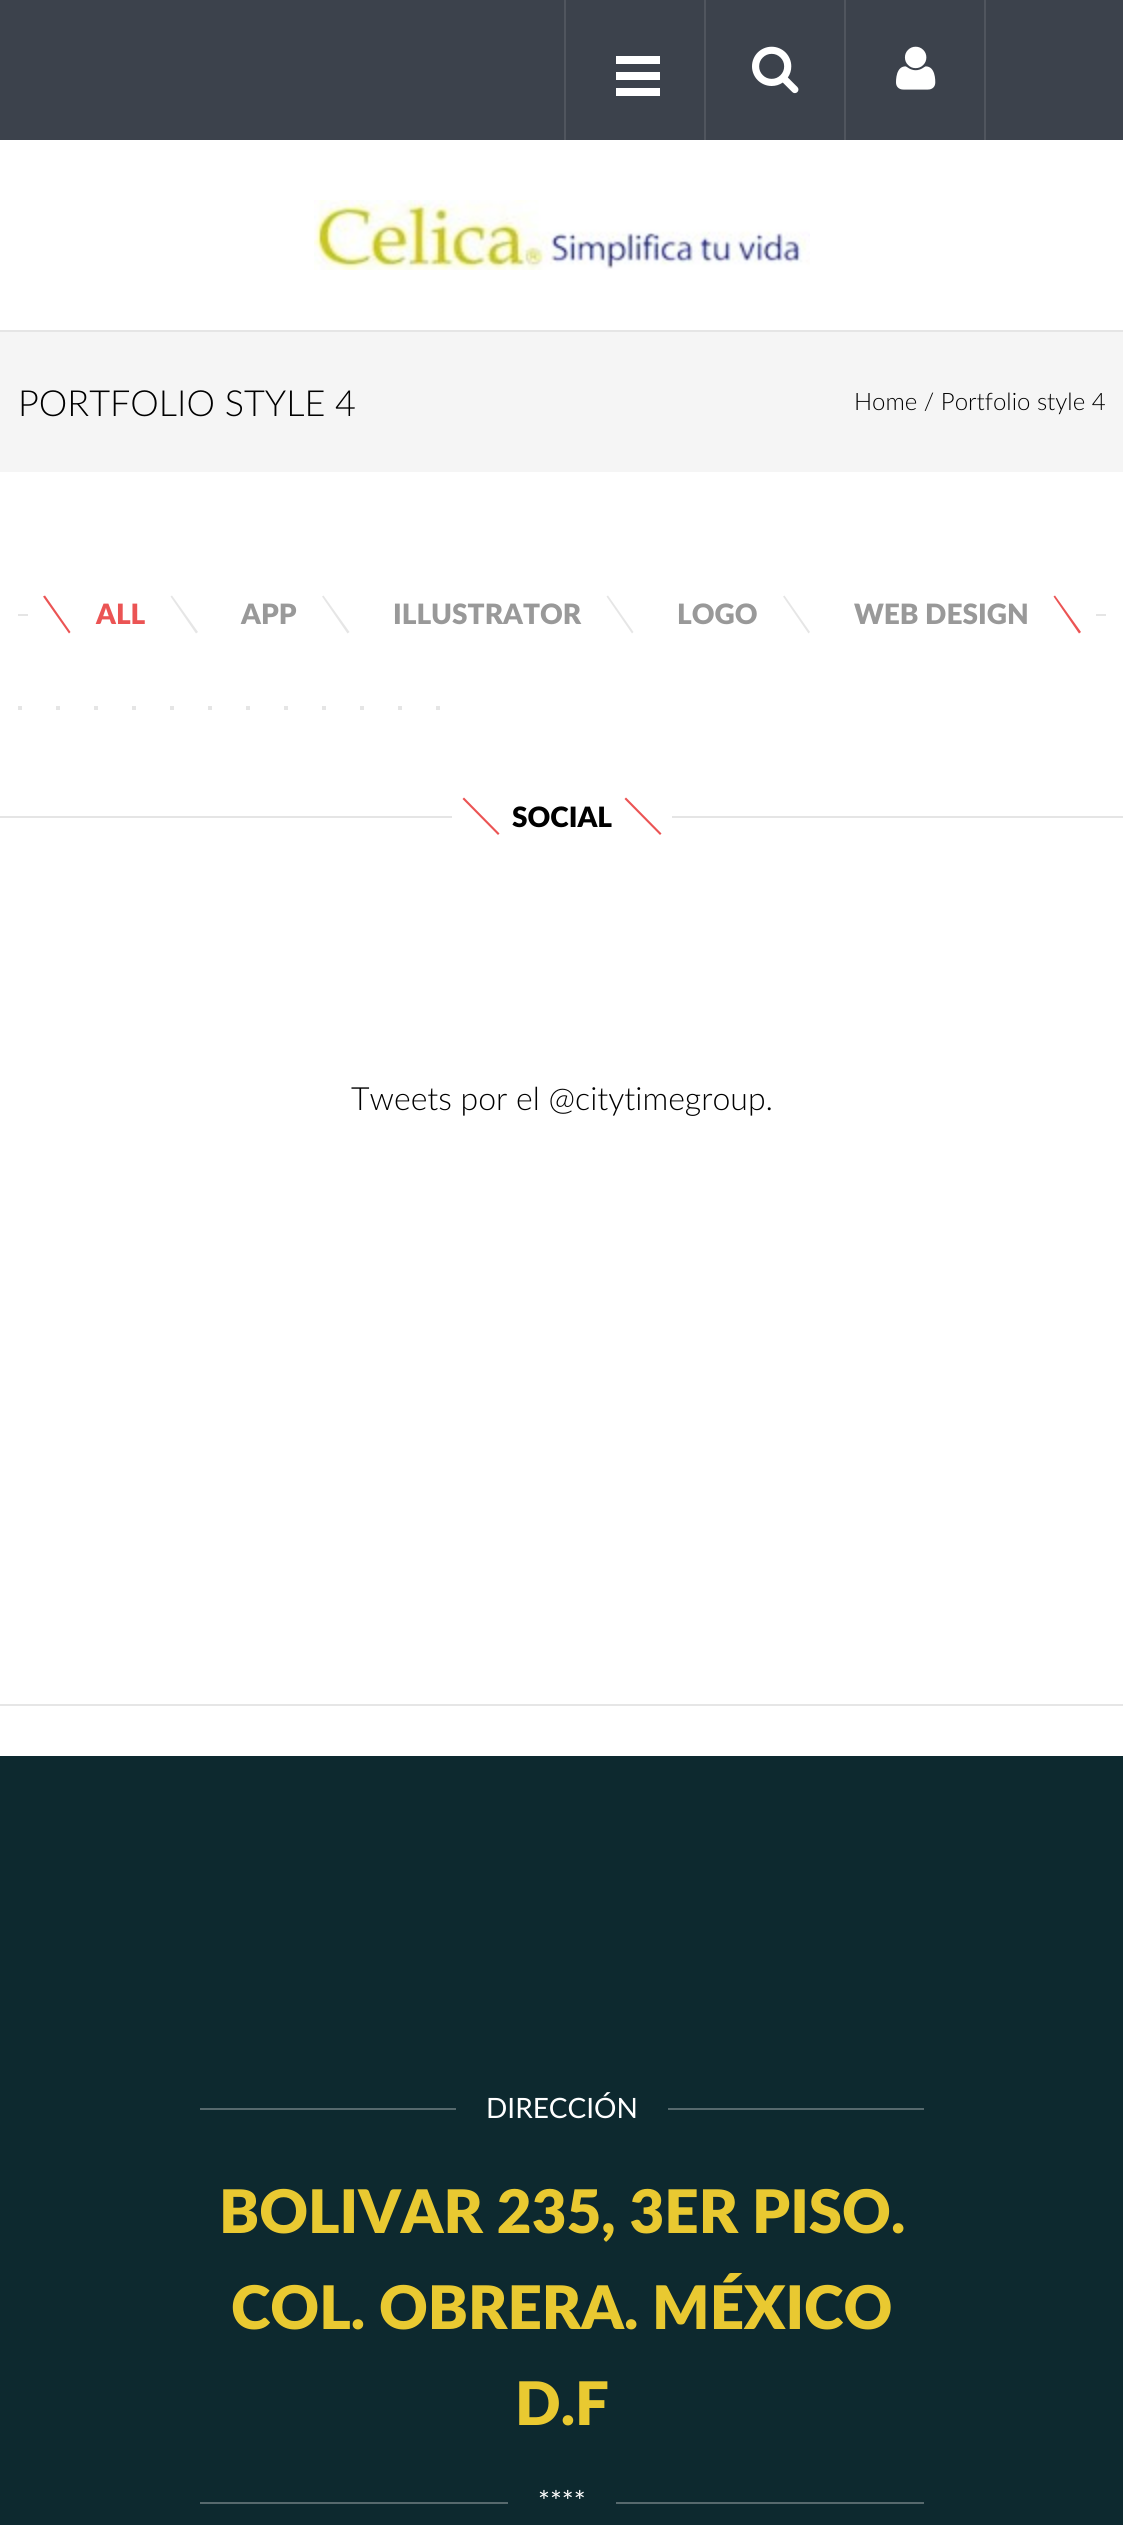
#include <cairo.h>
#include <math.h>
#include <stddef.h>

static cairo_t *ctx;

static void use_color(int r, int g, int b) {
    cairo_set_source_rgb(ctx, r / 255.0, g / 255.0, b / 255.0);
}

static void picture(const char *path, double x, double y, double w, double h) {
    cairo_surface_t *image = cairo_image_surface_create_from_png(path);
    cairo_save(ctx);
    cairo_set_source_surface(ctx, image, x, y);
    cairo_rectangle(ctx, x, y, w, h);
    cairo_fill(ctx);
    cairo_restore(ctx);
    cairo_surface_destroy(image);
}

int main(void) {
    cairo_surface_t *surface = cairo_image_surface_create(CAIRO_FORMAT_RGB24, 1123, 2525);
    ctx = cairo_create(surface);
    cairo_font_options_t *options = cairo_font_options_create();
    cairo_font_options_set_hint_metrics(options, CAIRO_HINT_METRICS_OFF);
    cairo_font_options_set_hint_style(options, CAIRO_HINT_STYLE_NONE);
    cairo_set_font_options(ctx, options);
    cairo_set_miter_limit(ctx, 4);
    use_color(255, 255, 255);
    cairo_paint(ctx);
    use_color(60, 66, 76);
    cairo_rectangle(ctx, 0, 0, 1123, 140);
    cairo_fill(ctx);
    use_color(80, 85, 94);
    cairo_rectangle(ctx, 564, 0, 2, 140);
    cairo_fill(ctx);
    use_color(255, 255, 255);
    cairo_rectangle(ctx, 616, 56, 44, 8);
    cairo_fill(ctx);
    cairo_rectangle(ctx, 616, 72, 44, 8);
    cairo_fill(ctx);
    cairo_rectangle(ctx, 616, 88, 44, 8);
    cairo_fill(ctx);
    use_color(80, 85, 94);
    cairo_rectangle(ctx, 704, 0, 2, 140);
    cairo_fill(ctx);
    picture("img1.png", 752, 46, 47, 48);
    cairo_rectangle(ctx, 844, 0, 2, 140);
    cairo_fill(ctx);
    picture("img2.png", 896, 46, 40, 44);
    cairo_rectangle(ctx, 984, 0, 2, 140);
    cairo_fill(ctx);
    use_color(229, 229, 229);
    cairo_rectangle(ctx, 0, 330, 1123, 2);
    cairo_fill(ctx);
    picture("img3.png", 314, 200, 496, 70);
    use_color(245, 245, 245);
    cairo_rectangle(ctx, 0, 332, 1123, 140);
    cairo_fill(ctx);
    cairo_select_font_face(ctx, "Lato Light", CAIRO_FONT_SLANT_NORMAL, CAIRO_FONT_WEIGHT_NORMAL);
    cairo_set_font_size(ctx, 36);
    use_color(0, 0, 0);
    cairo_move_to(ctx, 18, 416);
    cairo_show_text(ctx, "PORTFOLIO STYLE 4");
    cairo_set_font_size(ctx, 24);
    cairo_move_to(ctx, 854, 410);
    cairo_show_text(ctx, "Home / Portfolio style 4");
    use_color(229, 229, 229);
    cairo_rectangle(ctx, 18, 614, 10, 2);
    cairo_fill(ctx);
    use_color(235, 84, 84);
    cairo_new_path(ctx);
    cairo_move_to(ctx, 43, 596.5);
    cairo_line_to(ctx, 45, 595.5);
    cairo_line_to(ctx, 70.5, 632);
    cairo_line_to(ctx, 69, 633.5);
    cairo_close_path(ctx);
    cairo_fill(ctx);
    cairo_select_font_face(ctx, "Lato Black", CAIRO_FONT_SLANT_NORMAL, CAIRO_FONT_WEIGHT_NORMAL);
    cairo_set_font_size(ctx, 28);
    cairo_move_to(ctx, 96, 624);
    cairo_show_text(ctx, "ALL");
    use_color(230, 230, 230);
    cairo_new_path(ctx);
    cairo_move_to(ctx, 170.5, 596.5);
    cairo_line_to(ctx, 172, 595.5);
    cairo_line_to(ctx, 198, 632);
    cairo_line_to(ctx, 196, 633.5);
    cairo_close_path(ctx);
    cairo_fill(ctx);
    use_color(153, 153, 153);
    cairo_move_to(ctx, 241, 624);
    cairo_show_text(ctx, "APP");
    use_color(230, 230, 230);
    cairo_new_path(ctx);
    cairo_move_to(ctx, 322, 596.5);
    cairo_line_to(ctx, 323.5, 595.5);
    cairo_line_to(ctx, 349.5, 632);
    cairo_line_to(ctx, 347.5, 633.5);
    cairo_close_path(ctx);
    cairo_fill(ctx);
    use_color(153, 153, 153);
    cairo_move_to(ctx, 393, 624);
    cairo_show_text(ctx, "ILLUSTRATOR");
    use_color(230, 230, 230);
    cairo_new_path(ctx);
    cairo_move_to(ctx, 606.5, 596.5);
    cairo_line_to(ctx, 608, 595.5);
    cairo_line_to(ctx, 633.5, 632);
    cairo_line_to(ctx, 632, 633.5);
    cairo_close_path(ctx);
    cairo_fill(ctx);
    use_color(153, 153, 153);
    cairo_move_to(ctx, 677, 624);
    cairo_show_text(ctx, "LOGO");
    use_color(230, 230, 230);
    cairo_new_path(ctx);
    cairo_move_to(ctx, 783, 596.5);
    cairo_line_to(ctx, 784.5, 595.5);
    cairo_line_to(ctx, 810, 632);
    cairo_line_to(ctx, 808.5, 633.5);
    cairo_close_path(ctx);
    cairo_fill(ctx);
    use_color(153, 153, 153);
    cairo_move_to(ctx, 854, 624);
    cairo_show_text(ctx, "WEB DESIGN");
    use_color(235, 84, 84);
    cairo_new_path(ctx);
    cairo_move_to(ctx, 1053.5, 596.5);
    cairo_line_to(ctx, 1055, 595.5);
    cairo_line_to(ctx, 1081, 632);
    cairo_line_to(ctx, 1079, 633.5);
    cairo_close_path(ctx);
    cairo_fill(ctx);
    use_color(229, 229, 229);
    cairo_rectangle(ctx, 1096, 614, 10, 2);
    cairo_fill(ctx);
    cairo_rectangle(ctx, 18, 706, 4, 4);
    cairo_fill(ctx);
    cairo_rectangle(ctx, 56, 706, 4, 4);
    cairo_fill(ctx);
    cairo_rectangle(ctx, 94, 706, 4, 4);
    cairo_fill(ctx);
    cairo_rectangle(ctx, 132, 706, 4, 4);
    cairo_fill(ctx);
    cairo_rectangle(ctx, 170, 706, 4, 4);
    cairo_fill(ctx);
    cairo_rectangle(ctx, 208, 706, 4, 4);
    cairo_fill(ctx);
    cairo_rectangle(ctx, 246, 706, 4, 4);
    cairo_fill(ctx);
    cairo_rectangle(ctx, 284, 706, 4, 4);
    cairo_fill(ctx);
    cairo_rectangle(ctx, 322, 706, 4, 4);
    cairo_fill(ctx);
    cairo_rectangle(ctx, 360, 706, 4, 4);
    cairo_fill(ctx);
    cairo_rectangle(ctx, 398, 706, 4, 4);
    cairo_fill(ctx);
    cairo_rectangle(ctx, 436, 706, 4, 4);
    cairo_fill(ctx);
    cairo_rectangle(ctx, 0, 816, 452, 2);
    cairo_fill(ctx);
    use_color(235, 84, 84);
    cairo_new_path(ctx);
    cairo_move_to(ctx, 462.5, 799);
    cairo_line_to(ctx, 464, 797.5);
    cairo_line_to(ctx, 499.5, 833.5);
    cairo_line_to(ctx, 498, 835);
    cairo_close_path(ctx);
    cairo_fill(ctx);
    use_color(0, 0, 0);
    cairo_move_to(ctx, 512, 827);
    cairo_show_text(ctx, "SOCIAL");
    use_color(235, 84, 84);
    cairo_new_path(ctx);
    cairo_move_to(ctx, 624.5, 799);
    cairo_line_to(ctx, 626, 797.5);
    cairo_line_to(ctx, 661.5, 833.5);
    cairo_line_to(ctx, 660, 835);
    cairo_close_path(ctx);
    cairo_fill(ctx);
    use_color(229, 229, 229);
    cairo_rectangle(ctx, 672, 816, 451, 2);
    cairo_fill(ctx);
    cairo_select_font_face(ctx, "Lato Light", CAIRO_FONT_SLANT_NORMAL, CAIRO_FONT_WEIGHT_NORMAL);
    cairo_set_font_size(ctx, 32);
    use_color(0, 0, 0);
    cairo_move_to(ctx, 351, 1110);
    cairo_show_text(ctx, "Tweets por el @citytimegroup.");
    use_color(230, 230, 230);
    cairo_rectangle(ctx, 0, 1704, 1123, 2);
    cairo_fill(ctx);
    use_color(13, 41, 47);
    cairo_rectangle(ctx, 0, 1756, 1123, 769);
    cairo_fill(ctx);
    use_color(86, 105, 109);
    cairo_rectangle(ctx, 200, 2108, 256, 2);
    cairo_fill(ctx);
    cairo_select_font_face(ctx, "Lato", CAIRO_FONT_SLANT_NORMAL, CAIRO_FONT_WEIGHT_NORMAL);
    cairo_set_font_size(ctx, 28);
    use_color(255, 255, 255);
    cairo_move_to(ctx, 486, 2118);
    cairo_show_text(ctx, "DIRECCIÓN");
    use_color(86, 105, 109);
    cairo_rectangle(ctx, 668, 2108, 256, 2);
    cairo_fill(ctx);
    cairo_select_font_face(ctx, "Lato Black", CAIRO_FONT_SLANT_NORMAL, CAIRO_FONT_WEIGHT_NORMAL);
    cairo_set_font_size(ctx, 60);
    use_color(233, 201, 49);
    cairo_move_to(ctx, 219, 2233);
    cairo_show_text(ctx, "BOLIVAR 235, 3ER PISO.");
    cairo_move_to(ctx, 231, 2329);
    cairo_show_text(ctx, "COL. OBRERA. MÉXICO");
    cairo_move_to(ctx, 515, 2425);
    cairo_show_text(ctx, "D.F");
    cairo_select_font_face(ctx, "Lato", CAIRO_FONT_SLANT_NORMAL, CAIRO_FONT_WEIGHT_NORMAL);
    cairo_set_font_size(ctx, 28);
    use_color(255, 255, 255);
    cairo_move_to(ctx, 538, 2511);
    cairo_show_text(ctx, "****");
    use_color(86, 105, 109);
    cairo_rectangle(ctx, 200, 2502, 308, 2);
    cairo_fill(ctx);
    cairo_rectangle(ctx, 616, 2502, 308, 2);
    cairo_fill(ctx);
    cairo_surface_write_to_png(surface, "result.png");
    cairo_font_options_destroy(options);
    cairo_destroy(ctx);
    cairo_surface_destroy(surface);
    return 0;
}
